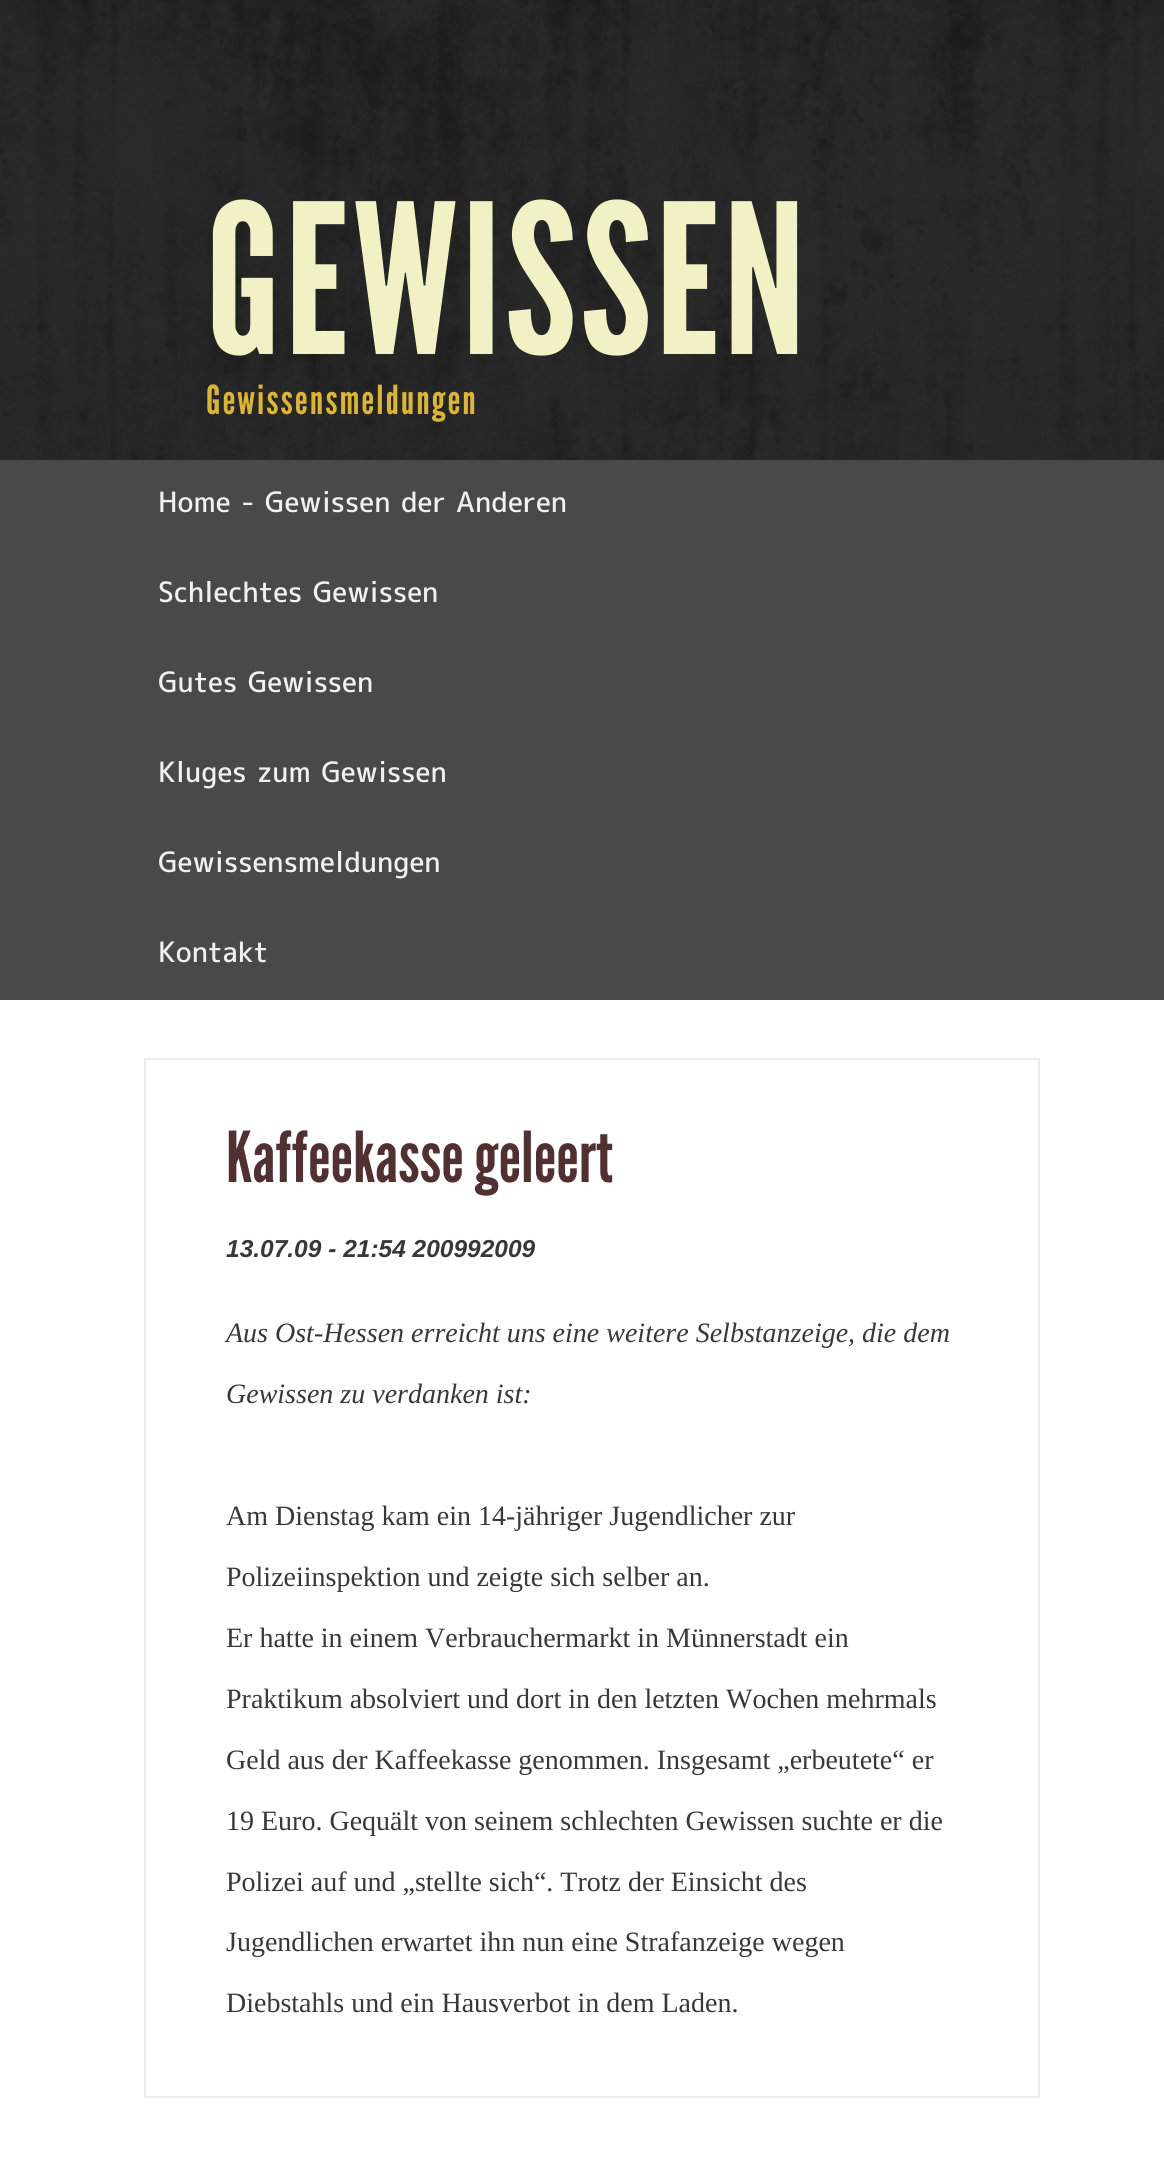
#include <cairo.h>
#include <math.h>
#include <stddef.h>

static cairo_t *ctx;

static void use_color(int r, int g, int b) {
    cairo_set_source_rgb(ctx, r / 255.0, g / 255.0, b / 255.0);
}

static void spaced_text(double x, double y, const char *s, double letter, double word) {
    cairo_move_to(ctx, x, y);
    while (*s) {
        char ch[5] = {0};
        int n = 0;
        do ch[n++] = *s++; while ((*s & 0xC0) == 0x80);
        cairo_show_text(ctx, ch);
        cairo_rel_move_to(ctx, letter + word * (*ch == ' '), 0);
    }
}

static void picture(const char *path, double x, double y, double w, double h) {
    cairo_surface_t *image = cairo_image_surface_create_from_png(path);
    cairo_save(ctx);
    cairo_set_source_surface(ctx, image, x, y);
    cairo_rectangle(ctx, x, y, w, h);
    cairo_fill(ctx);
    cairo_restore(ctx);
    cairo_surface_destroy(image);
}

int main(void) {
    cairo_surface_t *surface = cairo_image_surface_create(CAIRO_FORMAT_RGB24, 1164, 2176);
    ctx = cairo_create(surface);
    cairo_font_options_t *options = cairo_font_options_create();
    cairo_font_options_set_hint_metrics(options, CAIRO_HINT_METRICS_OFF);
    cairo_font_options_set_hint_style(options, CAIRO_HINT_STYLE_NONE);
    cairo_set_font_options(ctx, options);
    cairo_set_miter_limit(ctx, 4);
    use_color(255, 255, 255);
    cairo_paint(ctx);
    use_color(27, 27, 27);
    cairo_rectangle(ctx, 0, 0, 1164, 460);
    cairo_fill(ctx);
    picture("img1.png", 0, 0, 1164, 460);
    cairo_select_font_face(ctx, "League Gothic", CAIRO_FONT_SLANT_NORMAL, CAIRO_FONT_WEIGHT_NORMAL);
    cairo_set_font_size(ctx, 208);
    use_color(241, 241, 197);
    spaced_text(206, 354, "GEWISSEN", 4, 0);
    cairo_set_font_size(ctx, 40);
    use_color(218, 181, 56);
    spaced_text(206, 414, "Gewissensmeldungen", 2, 0);
    use_color(73, 73, 73);
    cairo_rectangle(ctx, 0, 460, 1164, 540);
    cairo_fill(ctx);
    cairo_select_font_face(ctx, "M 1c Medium", CAIRO_FONT_SLANT_NORMAL, CAIRO_FONT_WEIGHT_NORMAL);
    cairo_set_font_size(ctx, 28);
    use_color(241, 241, 238);
    cairo_move_to(ctx, 158, 512);
    cairo_show_text(ctx, "Home - Gewissen der Anderen");
    cairo_move_to(ctx, 158, 602);
    cairo_show_text(ctx, "Schlechtes Gewissen");
    cairo_move_to(ctx, 158, 692);
    cairo_show_text(ctx, "Gutes Gewissen");
    cairo_move_to(ctx, 158, 782);
    cairo_show_text(ctx, "Kluges zum Gewissen");
    cairo_move_to(ctx, 158, 872);
    cairo_show_text(ctx, "Gewissensmeldungen");
    cairo_move_to(ctx, 158, 962);
    cairo_show_text(ctx, "Kontakt");
    cairo_rectangle(ctx, 145, 1059, 894, 1038);
    use_color(236, 236, 236);
    cairo_stroke(ctx);
    cairo_select_font_face(ctx, "League Gothic", CAIRO_FONT_SLANT_NORMAL, CAIRO_FONT_WEIGHT_NORMAL);
    cairo_set_font_size(ctx, 70);
    use_color(80, 48, 48);
    cairo_move_to(ctx, 226, 1182);
    cairo_show_text(ctx, "Kaffeekasse geleert");
    cairo_select_font_face(ctx, "Liberation Sans", CAIRO_FONT_SLANT_ITALIC, CAIRO_FONT_WEIGHT_BOLD);
    cairo_set_font_size(ctx, 24.5);
    use_color(56, 56, 56);
    cairo_move_to(ctx, 226, 1257);
    cairo_show_text(ctx, "13.07.09 - 21:54 200992009");
    cairo_select_font_face(ctx, "Liberation Serif", CAIRO_FONT_SLANT_ITALIC, CAIRO_FONT_WEIGHT_NORMAL);
    cairo_set_font_size(ctx, 28);
    cairo_move_to(ctx, 226, 1342);
    cairo_show_text(ctx, "Aus Ost-Hessen erreicht uns eine weitere Selbstanzeige, die dem");
    cairo_move_to(ctx, 226, 1403);
    cairo_show_text(ctx, "Gewissen zu verdanken ist:");
    cairo_select_font_face(ctx, "Liberation Serif", CAIRO_FONT_SLANT_NORMAL, CAIRO_FONT_WEIGHT_NORMAL);
    cairo_move_to(ctx, 226, 1525);
    cairo_show_text(ctx, "Am Dienstag kam ein 14-jähriger Jugendlicher zur");
    cairo_move_to(ctx, 226, 1586);
    cairo_show_text(ctx, "Polizeiinspektion und zeigte sich selber an.");
    cairo_move_to(ctx, 226, 1647);
    cairo_show_text(ctx, "Er hatte in einem Verbrauchermarkt in Münnerstadt ein");
    cairo_move_to(ctx, 226, 1708);
    cairo_show_text(ctx, "Praktikum absolviert und dort in den letzten Wochen mehrmals");
    cairo_move_to(ctx, 226, 1769);
    cairo_show_text(ctx, "Geld aus der Kaffeekasse genommen. Insgesamt „erbeutete“ er");
    cairo_move_to(ctx, 226, 1830);
    cairo_show_text(ctx, "19 Euro. Gequält von seinem schlechten Gewissen suchte er die");
    cairo_move_to(ctx, 226, 1891);
    cairo_show_text(ctx, "Polizei auf und „stellte sich“. Trotz der Einsicht des");
    cairo_move_to(ctx, 226, 1951);
    cairo_show_text(ctx, "Jugendlichen erwartet ihn nun eine Strafanzeige wegen");
    cairo_move_to(ctx, 226, 2012);
    cairo_show_text(ctx, "Diebstahls und ein Hausverbot in dem Laden.");
    cairo_surface_write_to_png(surface, "result.png");
    cairo_font_options_destroy(options);
    cairo_destroy(ctx);
    cairo_surface_destroy(surface);
    return 0;
}
